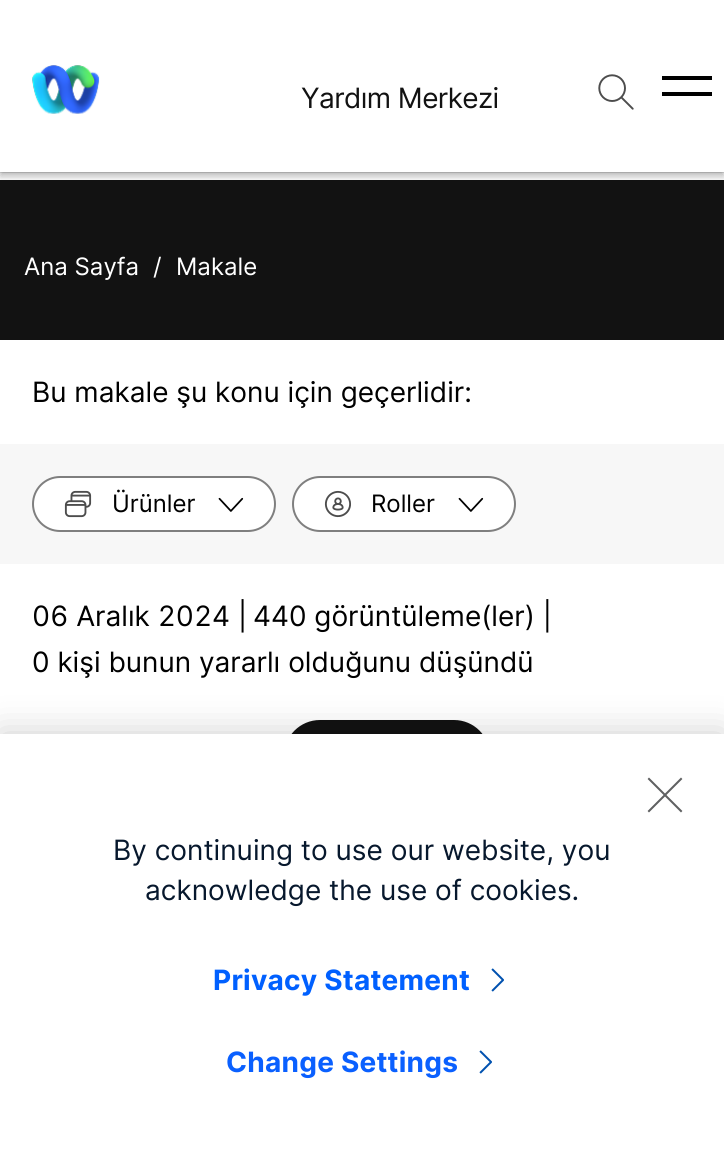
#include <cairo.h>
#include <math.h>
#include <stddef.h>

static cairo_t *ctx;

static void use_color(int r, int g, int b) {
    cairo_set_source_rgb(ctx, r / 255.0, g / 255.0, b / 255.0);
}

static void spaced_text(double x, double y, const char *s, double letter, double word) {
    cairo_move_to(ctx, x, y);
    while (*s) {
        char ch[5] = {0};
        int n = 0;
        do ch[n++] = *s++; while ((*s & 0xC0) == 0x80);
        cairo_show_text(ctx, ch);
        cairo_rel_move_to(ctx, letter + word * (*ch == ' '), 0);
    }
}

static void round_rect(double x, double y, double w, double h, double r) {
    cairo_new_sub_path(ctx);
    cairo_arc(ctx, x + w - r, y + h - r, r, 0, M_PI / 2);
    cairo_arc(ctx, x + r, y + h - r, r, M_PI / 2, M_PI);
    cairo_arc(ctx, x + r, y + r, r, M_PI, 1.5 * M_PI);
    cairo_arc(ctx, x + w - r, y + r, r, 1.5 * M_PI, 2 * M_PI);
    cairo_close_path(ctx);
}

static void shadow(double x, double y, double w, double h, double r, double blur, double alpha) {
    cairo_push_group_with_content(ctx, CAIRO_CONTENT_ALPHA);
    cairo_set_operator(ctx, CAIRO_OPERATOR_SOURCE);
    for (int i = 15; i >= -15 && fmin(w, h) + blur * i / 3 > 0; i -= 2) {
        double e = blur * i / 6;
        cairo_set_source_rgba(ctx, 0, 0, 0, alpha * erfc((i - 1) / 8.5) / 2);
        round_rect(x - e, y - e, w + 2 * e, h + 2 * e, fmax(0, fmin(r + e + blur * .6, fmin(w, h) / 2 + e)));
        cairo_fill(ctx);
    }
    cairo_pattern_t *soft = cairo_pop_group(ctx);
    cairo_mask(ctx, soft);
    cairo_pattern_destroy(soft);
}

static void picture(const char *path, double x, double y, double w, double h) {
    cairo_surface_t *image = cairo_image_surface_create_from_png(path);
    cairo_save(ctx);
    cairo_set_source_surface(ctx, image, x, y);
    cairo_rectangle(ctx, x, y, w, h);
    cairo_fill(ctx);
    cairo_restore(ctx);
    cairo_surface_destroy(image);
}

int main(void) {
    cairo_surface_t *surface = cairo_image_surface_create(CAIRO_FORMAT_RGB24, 724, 1154);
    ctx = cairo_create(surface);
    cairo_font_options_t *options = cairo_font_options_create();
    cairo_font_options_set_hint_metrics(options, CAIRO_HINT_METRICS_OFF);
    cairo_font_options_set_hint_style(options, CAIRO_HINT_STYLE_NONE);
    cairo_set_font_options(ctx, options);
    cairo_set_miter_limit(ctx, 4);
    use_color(255, 255, 255);
    cairo_paint(ctx);
    cairo_save(ctx);
    cairo_rectangle(ctx, 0, 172, 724, 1);
    cairo_clip(ctx);
    use_color(0, 0, 0);
    shadow(0, 0, 724, 172, 0, 1, 0.18);
    cairo_restore(ctx);
    use_color(18, 18, 18);
    cairo_rectangle(ctx, 0, 180, 724, 160);
    cairo_fill(ctx);
    cairo_save(ctx);
    cairo_rectangle(ctx, 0, 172, 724, 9);
    cairo_clip(ctx);
    use_color(0, 0, 0);
    shadow(0, 4, 724, 172, 0, 4, 0.16);
    cairo_restore(ctx);
    cairo_save(ctx);
    cairo_rectangle(ctx, 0, 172, 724, 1);
    cairo_clip(ctx);
    use_color(0, 0, 0);
    shadow(0, 0, 724, 172, 0, 1, 0.18);
    cairo_restore(ctx);
    cairo_save(ctx);
    cairo_rectangle(ctx, 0, 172, 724, 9);
    cairo_clip(ctx);
    use_color(0, 0, 0);
    shadow(0, 4, 724, 172, 0, 4, 0.16);
    cairo_restore(ctx);
    picture("img1.png", 32, 65, 68, 49);
    cairo_select_font_face(ctx, "Inter", CAIRO_FONT_SLANT_NORMAL, CAIRO_FONT_WEIGHT_NORMAL);
    cairo_set_font_size(ctx, 28);
    spaced_text(301, 108, "Yardım Merkezi", -0.6, 0);
    picture("img2.png", 598, 74, 36, 36);
    use_color(0, 0, 0);
    cairo_rectangle(ctx, 662, 76, 50, 4);
    cairo_fill(ctx);
    cairo_rectangle(ctx, 662, 92, 50, 4);
    cairo_fill(ctx);
    cairo_set_font_size(ctx, 24);
    use_color(255, 255, 255);
    cairo_move_to(ctx, 24, 275);
    cairo_show_text(ctx, "Ana Sayfa");
    cairo_move_to(ctx, 153, 275);
    cairo_show_text(ctx, "/");
    cairo_move_to(ctx, 176, 275);
    cairo_show_text(ctx, "Makale");
    cairo_set_font_size(ctx, 28);
    use_color(0, 0, 0);
    cairo_move_to(ctx, 32, 402);
    cairo_show_text(ctx, "Bu makale şu konu için geçerlidir:");
    use_color(247, 247, 247);
    cairo_rectangle(ctx, 0, 444, 724, 120);
    cairo_fill(ctx);
    use_color(255, 255, 255);
    round_rect(32, 476, 244, 56, 28);
    cairo_fill(ctx);
    round_rect(33, 477, 242, 54, 27);
    cairo_set_source_rgba(ctx, 0, 0, 0, 0.5);
    cairo_stroke(ctx);
    picture("img3.png", 64, 490, 28, 28);
    cairo_set_font_size(ctx, 24);
    use_color(0, 0, 0);
    cairo_move_to(ctx, 112, 512);
    cairo_show_text(ctx, "Ürünler");
    picture("img4.png", 218, 497, 26, 15);
    use_color(255, 255, 255);
    round_rect(292, 476, 224, 56, 28);
    cairo_fill(ctx);
    round_rect(293, 477, 222, 54, 27);
    cairo_set_source_rgba(ctx, 0, 0, 0, 0.5);
    cairo_stroke(ctx);
    picture("img5.png", 324, 490, 27, 28);
    use_color(0, 0, 0);
    cairo_move_to(ctx, 371, 512);
    cairo_show_text(ctx, "Roller");
    picture("img4.png", 458, 497, 26, 15);
    cairo_select_font_face(ctx, "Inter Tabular", CAIRO_FONT_SLANT_NORMAL, CAIRO_FONT_WEIGHT_NORMAL);
    cairo_set_font_size(ctx, 28);
    cairo_move_to(ctx, 32, 626);
    cairo_show_text(ctx, "06 Aralık 2024 |");
    cairo_select_font_face(ctx, "Inter", CAIRO_FONT_SLANT_NORMAL, CAIRO_FONT_WEIGHT_NORMAL);
    cairo_move_to(ctx, 253, 626);
    cairo_show_text(ctx, "440 görüntüleme(ler) |");
    cairo_move_to(ctx, 32, 672);
    cairo_show_text(ctx, "0 kişi bunun yararlı olduğunu düşündü");
    use_color(18, 18, 18);
    round_rect(285, 721, 204, 70, 35);
    cairo_fill_preserve(ctx);
    cairo_stroke(ctx);
    use_color(0, 0, 0);
    shadow(0, 734, 724, 420, 0, 18, 0.2);
    use_color(255, 255, 255);
    cairo_rectangle(ctx, 0, 734, 724, 420);
    cairo_fill(ctx);
    picture("img6.png", 647, 777, 36, 36);
    use_color(7, 24, 45);
    cairo_move_to(ctx, 113, 860);
    cairo_show_text(ctx, "By continuing to use our website, you");
    cairo_move_to(ctx, 145, 900);
    cairo_show_text(ctx, "acknowledge the use of cookies.");
    cairo_select_font_face(ctx, "Inter", CAIRO_FONT_SLANT_NORMAL, CAIRO_FONT_WEIGHT_BOLD);
    use_color(0, 96, 255);
    spaced_text(213, 990, "Privacy Statement", 0.25, 0);
    picture("img7.png", 491, 968, 13, 24);
    use_color(10, 96, 255);
    spaced_text(226, 1072, "Change Settings", 0.25, 0);
    picture("img7.png", 479, 1050, 13, 24);
    cairo_surface_write_to_png(surface, "result.png");
    cairo_font_options_destroy(options);
    cairo_destroy(ctx);
    cairo_surface_destroy(surface);
    return 0;
}
